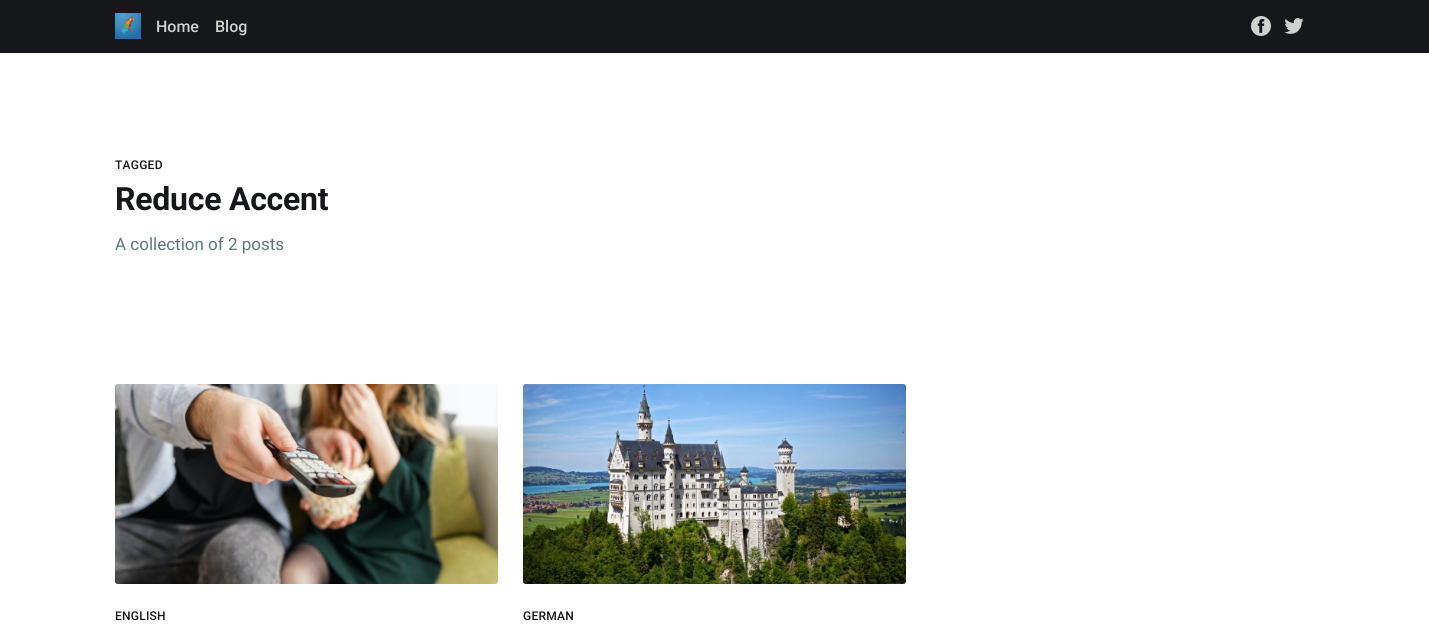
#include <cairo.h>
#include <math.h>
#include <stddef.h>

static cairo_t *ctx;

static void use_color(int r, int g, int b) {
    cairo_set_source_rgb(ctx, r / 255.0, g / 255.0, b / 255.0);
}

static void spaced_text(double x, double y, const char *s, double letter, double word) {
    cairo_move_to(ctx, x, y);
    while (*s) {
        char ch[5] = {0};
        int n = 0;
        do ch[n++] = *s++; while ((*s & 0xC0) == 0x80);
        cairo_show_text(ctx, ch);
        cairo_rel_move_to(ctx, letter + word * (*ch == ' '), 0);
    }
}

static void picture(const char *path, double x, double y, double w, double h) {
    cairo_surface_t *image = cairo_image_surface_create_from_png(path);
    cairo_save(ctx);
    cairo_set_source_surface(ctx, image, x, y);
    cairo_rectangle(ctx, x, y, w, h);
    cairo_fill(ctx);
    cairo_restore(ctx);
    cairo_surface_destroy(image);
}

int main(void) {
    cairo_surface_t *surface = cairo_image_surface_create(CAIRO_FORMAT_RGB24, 1429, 637);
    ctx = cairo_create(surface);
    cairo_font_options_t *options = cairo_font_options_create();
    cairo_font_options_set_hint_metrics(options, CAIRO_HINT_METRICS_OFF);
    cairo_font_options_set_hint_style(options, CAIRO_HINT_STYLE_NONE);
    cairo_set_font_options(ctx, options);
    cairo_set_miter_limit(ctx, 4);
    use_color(255, 255, 255);
    cairo_paint(ctx);
    use_color(21, 23, 26);
    cairo_rectangle(ctx, 0, 0, 1429, 53);
    cairo_fill(ctx);
    picture("img1.png", 115, 13, 26, 26);
    cairo_select_font_face(ctx, "Roboto Medium", CAIRO_FONT_SLANT_NORMAL, CAIRO_FONT_WEIGHT_NORMAL);
    cairo_set_font_size(ctx, 16);
    use_color(208, 209, 209);
    cairo_move_to(ctx, 156, 32);
    cairo_show_text(ctx, "Home");
    cairo_move_to(ctx, 215, 32);
    cairo_show_text(ctx, "Blog");
    picture("img2.png", 1251, 16, 20, 20);
    picture("img3.png", 1284, 18, 20, 16);
    cairo_set_font_size(ctx, 12);
    use_color(21, 23, 26);
    spaced_text(115, 169, "TAGGED", 0.25, 0);
    cairo_select_font_face(ctx, "Roboto", CAIRO_FONT_SLANT_NORMAL, CAIRO_FONT_WEIGHT_BOLD);
    cairo_set_font_size(ctx, 32);
    spaced_text(115, 210, "Reduce Accent", -0.25, 0);
    cairo_select_font_face(ctx, "Roboto", CAIRO_FONT_SLANT_NORMAL, CAIRO_FONT_WEIGHT_NORMAL);
    cairo_set_font_size(ctx, 17);
    use_color(96, 117, 126);
    cairo_move_to(ctx, 115, 250);
    cairo_show_text(ctx, "A collection of 2 posts");
    picture("img4.png", 115, 384, 383, 200);
    cairo_select_font_face(ctx, "Roboto Medium", CAIRO_FONT_SLANT_NORMAL, CAIRO_FONT_WEIGHT_NORMAL);
    cairo_set_font_size(ctx, 12);
    use_color(21, 23, 26);
    spaced_text(115, 620, "ENGLISH", 0.25, 0);
    picture("img5.png", 523, 384, 383, 200);
    spaced_text(523, 620, "GERMAN", 0.25, 0);
    cairo_surface_write_to_png(surface, "result.png");
    cairo_font_options_destroy(options);
    cairo_destroy(ctx);
    cairo_surface_destroy(surface);
    return 0;
}
